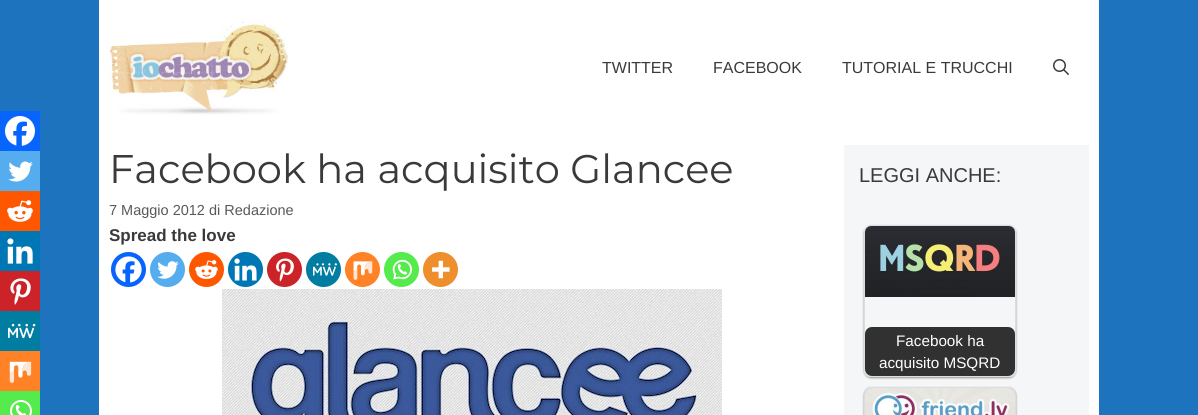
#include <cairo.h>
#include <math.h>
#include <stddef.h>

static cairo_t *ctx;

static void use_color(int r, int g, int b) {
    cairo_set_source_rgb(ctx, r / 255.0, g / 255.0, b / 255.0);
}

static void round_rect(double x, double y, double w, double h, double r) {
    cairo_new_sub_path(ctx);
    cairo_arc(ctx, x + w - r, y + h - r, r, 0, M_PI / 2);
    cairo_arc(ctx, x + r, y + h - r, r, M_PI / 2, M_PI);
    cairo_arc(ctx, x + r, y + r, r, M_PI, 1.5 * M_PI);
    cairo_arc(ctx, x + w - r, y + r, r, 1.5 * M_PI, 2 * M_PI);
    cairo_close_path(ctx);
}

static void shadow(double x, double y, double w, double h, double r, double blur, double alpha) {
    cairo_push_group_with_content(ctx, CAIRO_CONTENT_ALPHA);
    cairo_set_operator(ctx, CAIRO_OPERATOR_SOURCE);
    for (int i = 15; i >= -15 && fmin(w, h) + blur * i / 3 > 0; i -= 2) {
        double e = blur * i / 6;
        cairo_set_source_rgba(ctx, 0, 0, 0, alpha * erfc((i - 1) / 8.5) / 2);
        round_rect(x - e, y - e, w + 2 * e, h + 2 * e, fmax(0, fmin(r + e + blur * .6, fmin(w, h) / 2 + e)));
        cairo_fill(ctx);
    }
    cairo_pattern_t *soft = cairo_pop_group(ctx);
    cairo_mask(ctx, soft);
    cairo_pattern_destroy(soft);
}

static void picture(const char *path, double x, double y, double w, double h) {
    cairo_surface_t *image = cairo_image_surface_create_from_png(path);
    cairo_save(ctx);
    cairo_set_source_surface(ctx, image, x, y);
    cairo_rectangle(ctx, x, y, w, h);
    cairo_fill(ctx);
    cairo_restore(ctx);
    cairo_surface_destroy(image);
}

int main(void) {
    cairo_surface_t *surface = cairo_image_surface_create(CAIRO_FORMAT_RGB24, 1198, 415);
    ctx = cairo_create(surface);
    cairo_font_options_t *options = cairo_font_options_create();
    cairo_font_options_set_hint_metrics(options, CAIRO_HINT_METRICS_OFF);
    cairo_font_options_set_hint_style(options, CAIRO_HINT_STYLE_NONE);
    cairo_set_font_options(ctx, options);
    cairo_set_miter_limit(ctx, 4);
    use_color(30, 115, 190);
    cairo_paint(ctx);
    use_color(255, 255, 255);
    cairo_rectangle(ctx, 99, 0, 1000, 415);
    cairo_fill(ctx);
    picture("img1.png", 109, 20, 179, 95);
    cairo_select_font_face(ctx, "Liberation Sans", CAIRO_FONT_SLANT_NORMAL, CAIRO_FONT_WEIGHT_NORMAL);
    cairo_set_font_size(ctx, 16);
    use_color(58, 58, 58);
    cairo_move_to(ctx, 602, 73);
    cairo_show_text(ctx, "TWITTER");
    cairo_move_to(ctx, 713, 73);
    cairo_show_text(ctx, "FACEBOOK");
    cairo_move_to(ctx, 842, 73);
    cairo_show_text(ctx, "TUTORIAL E TRUCCHI");
    picture("img2.png", 1053, 59, 16, 16);
    cairo_select_font_face(ctx, "Montserrat", CAIRO_FONT_SLANT_NORMAL, CAIRO_FONT_WEIGHT_NORMAL);
    cairo_set_font_size(ctx, 40);
    cairo_move_to(ctx, 109, 183);
    cairo_show_text(ctx, "Facebook ha acquisito Glancee");
    cairo_select_font_face(ctx, "Liberation Sans", CAIRO_FONT_SLANT_NORMAL, CAIRO_FONT_WEIGHT_NORMAL);
    cairo_set_font_size(ctx, 14.5);
    use_color(89, 89, 89);
    cairo_move_to(ctx, 109, 215);
    cairo_show_text(ctx, "7 Maggio 2012 di Redazione");
    use_color(7, 101, 254);
    cairo_rectangle(ctx, 0, 111, 40, 40);
    cairo_fill(ctx);
    picture("img3.png", 5, 116, 30, 30);
    use_color(85, 172, 238);
    cairo_rectangle(ctx, 0, 151, 40, 40);
    cairo_fill(ctx);
    picture("img4.png", 8, 161, 25, 21);
    use_color(255, 87, 0);
    cairo_rectangle(ctx, 0, 191, 40, 40);
    cairo_fill(ctx);
    picture("img5.png", 7, 200, 26, 22);
    use_color(0, 119, 181);
    cairo_rectangle(ctx, 0, 231, 40, 40);
    cairo_fill(ctx);
    picture("img6.png", 7, 238, 26, 26);
    use_color(204, 35, 41);
    cairo_rectangle(ctx, 0, 271, 40, 40);
    cairo_fill(ctx);
    picture("img7.png", 10, 278, 21, 27);
    use_color(0, 125, 161);
    cairo_rectangle(ctx, 0, 311, 40, 40);
    cairo_fill(ctx);
    picture("img8.png", 8, 323, 28, 16);
    use_color(255, 130, 38);
    cairo_rectangle(ctx, 0, 351, 40, 40);
    cairo_fill(ctx);
    picture("img9.png", 9, 361, 23, 22);
    use_color(85, 235, 76);
    cairo_rectangle(ctx, 0, 391, 40, 24);
    cairo_fill(ctx);
    picture("img10.png", 10, 400, 22, 15);
    cairo_select_font_face(ctx, "Liberation Sans", CAIRO_FONT_SLANT_NORMAL, CAIRO_FONT_WEIGHT_BOLD);
    cairo_set_font_size(ctx, 17);
    use_color(58, 58, 58);
    cairo_move_to(ctx, 109, 241);
    cairo_show_text(ctx, "Spread the love");
    use_color(7, 101, 254);
    cairo_new_path(ctx);
    cairo_arc(ctx, 128.5, 269.5, 17.5, 0, 2 * M_PI);
    cairo_fill(ctx);
    picture("img11.png", 115, 256, 27, 27);
    use_color(85, 172, 238);
    cairo_arc(ctx, 167.5, 269.5, 17.5, 0, 2 * M_PI);
    cairo_fill(ctx);
    picture("img12.png", 157, 261, 22, 18);
    use_color(255, 87, 0);
    cairo_arc(ctx, 206.5, 269.5, 17.5, 0, 2 * M_PI);
    cairo_fill(ctx);
    picture("img13.png", 195, 260, 23, 19);
    use_color(0, 119, 181);
    cairo_arc(ctx, 245.5, 269.5, 17.5, 0, 2 * M_PI);
    cairo_fill(ctx);
    picture("img14.png", 234, 258, 23, 23);
    use_color(204, 35, 41);
    cairo_arc(ctx, 284.5, 269.5, 17.5, 0, 2 * M_PI);
    cairo_fill(ctx);
    picture("img15.png", 276, 258, 18, 24);
    use_color(0, 125, 161);
    cairo_arc(ctx, 323.5, 269.5, 17.5, 0, 2 * M_PI);
    cairo_fill(ctx);
    picture("img16.png", 313, 263, 24, 13);
    use_color(255, 130, 38);
    cairo_arc(ctx, 362.5, 269.5, 17.5, 0, 2 * M_PI);
    cairo_fill(ctx);
    picture("img17.png", 353, 261, 20, 19);
    use_color(85, 235, 76);
    cairo_arc(ctx, 401.5, 269.5, 17.5, 0, 2 * M_PI);
    cairo_fill(ctx);
    picture("img18.png", 392, 259, 20, 21);
    use_color(238, 142, 45);
    cairo_arc(ctx, 440.5, 269.5, 17.5, 0, 2 * M_PI);
    cairo_fill(ctx);
    picture("img19.png", 432, 260, 18, 19);
    picture("img20.png", 222, 289, 500, 126);
    use_color(244, 246, 247);
    cairo_rectangle(ctx, 844, 145, 245, 270);
    cairo_fill(ctx);
    cairo_select_font_face(ctx, "Liberation Sans", CAIRO_FONT_SLANT_NORMAL, CAIRO_FONT_WEIGHT_NORMAL);
    cairo_set_font_size(ctx, 20);
    use_color(58, 58, 58);
    cairo_move_to(ctx, 859, 182);
    cairo_show_text(ctx, "LEGGI ANCHE:");
    cairo_save(ctx);
    cairo_set_fill_rule(ctx, CAIRO_FILL_RULE_EVEN_ODD);
    cairo_new_path(ctx);
    cairo_move_to(ctx, 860, 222);
    cairo_line_to(ctx, 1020, 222);
    cairo_line_to(ctx, 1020, 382);
    cairo_line_to(ctx, 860, 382);
    cairo_close_path(ctx);
    cairo_move_to(ctx, 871, 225);
    cairo_line_to(ctx, 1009, 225);
    cairo_curve_to(ctx, 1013, 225, 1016, 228, 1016, 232);
    cairo_line_to(ctx, 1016, 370);
    cairo_curve_to(ctx, 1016, 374, 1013, 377, 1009, 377);
    cairo_line_to(ctx, 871, 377);
    cairo_curve_to(ctx, 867, 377, 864, 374, 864, 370);
    cairo_line_to(ctx, 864, 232);
    cairo_curve_to(ctx, 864, 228, 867, 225, 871, 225);
    cairo_close_path(ctx);
    cairo_clip(ctx);
    use_color(0, 0, 0);
    shadow(864, 226, 152, 152, 7, 1, 0.4);
    cairo_restore(ctx);
    round_rect(864.5, 225.5, 151, 151, 6.5);
    use_color(221, 221, 221);
    cairo_set_line_width(ctx, 1);
    cairo_stroke(ctx);
    picture("img21.png", 865, 226, 150, 71);
    cairo_save(ctx);
    round_rect(865, 226, 150, 150, 6);
    cairo_clip(ctx);
    use_color(49, 49, 49);
    round_rect(865, 327, 150, 49, 7);
    cairo_fill(ctx);
    cairo_restore(ctx);
    cairo_set_font_size(ctx, 15.25);
    use_color(255, 255, 255);
    cairo_move_to(ctx, 896, 346);
    cairo_show_text(ctx, "Facebook ha");
    cairo_move_to(ctx, 879, 368);
    cairo_show_text(ctx, "acquisito MSQRD");
    use_color(0, 0, 0);
    shadow(864, 388, 152, 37, 7, 1, 0.4);
    round_rect(864.5, 387.5, 151, 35, 6.5);
    use_color(221, 221, 221);
    cairo_stroke(ctx);
    picture("img22.png", 865, 388, 150, 27);
    cairo_surface_write_to_png(surface, "result.png");
    cairo_font_options_destroy(options);
    cairo_destroy(ctx);
    cairo_surface_destroy(surface);
    return 0;
}
